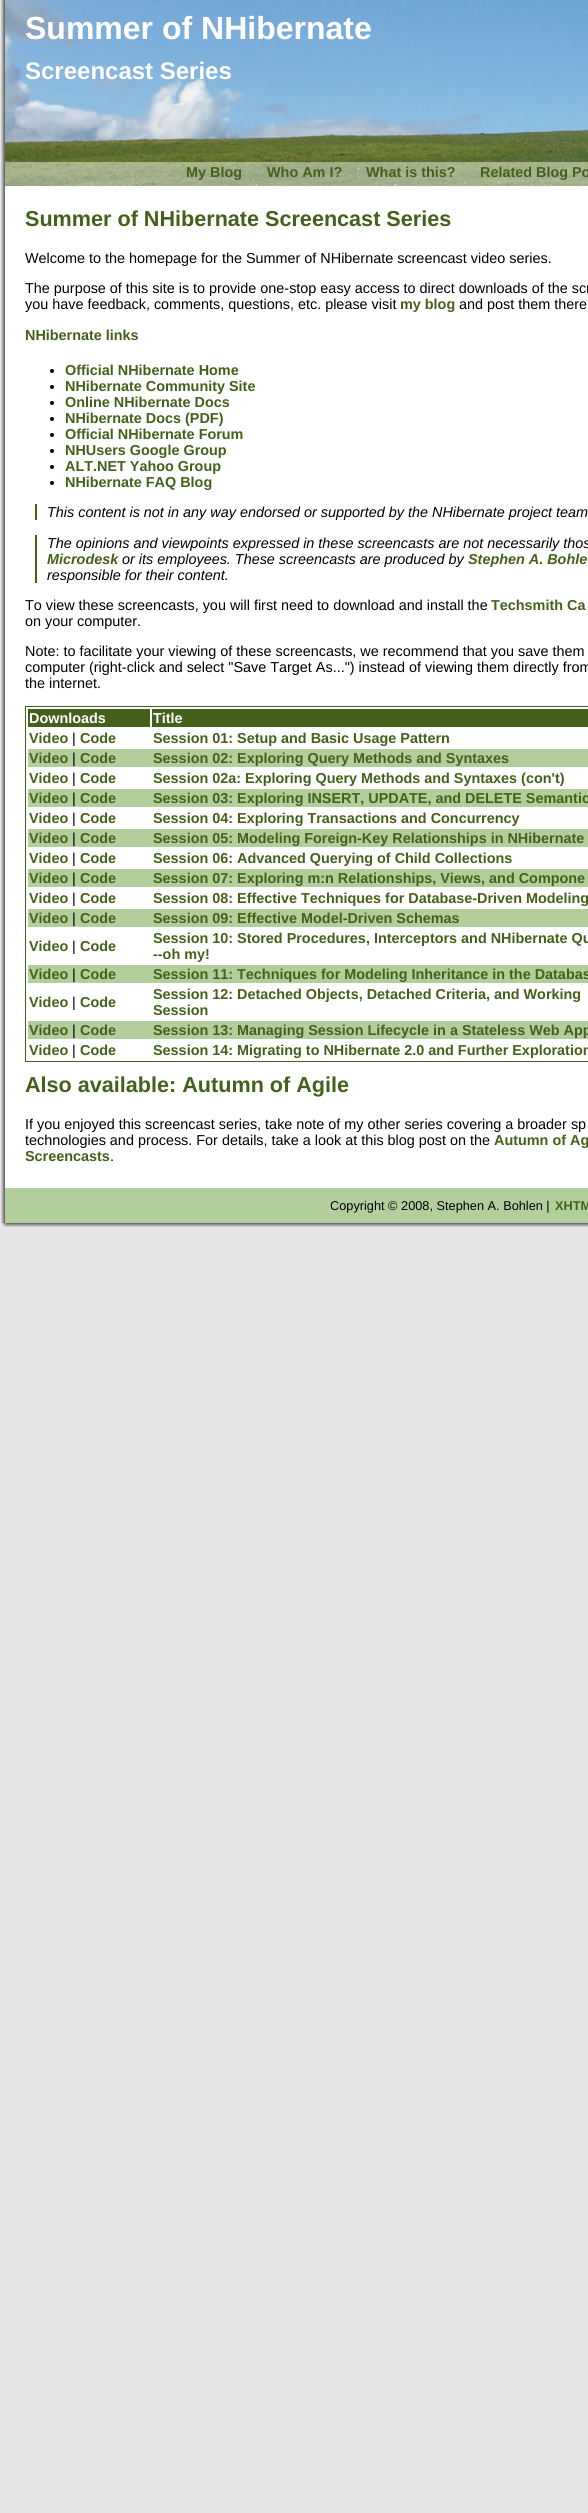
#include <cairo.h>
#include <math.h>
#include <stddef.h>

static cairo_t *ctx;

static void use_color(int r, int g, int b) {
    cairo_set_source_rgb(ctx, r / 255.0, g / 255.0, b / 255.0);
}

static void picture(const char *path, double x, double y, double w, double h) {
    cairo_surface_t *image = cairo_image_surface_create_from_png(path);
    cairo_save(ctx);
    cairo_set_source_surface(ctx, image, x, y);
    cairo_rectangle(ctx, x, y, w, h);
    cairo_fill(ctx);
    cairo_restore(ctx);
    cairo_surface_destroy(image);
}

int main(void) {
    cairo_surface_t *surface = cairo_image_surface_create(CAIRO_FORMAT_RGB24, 588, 2513);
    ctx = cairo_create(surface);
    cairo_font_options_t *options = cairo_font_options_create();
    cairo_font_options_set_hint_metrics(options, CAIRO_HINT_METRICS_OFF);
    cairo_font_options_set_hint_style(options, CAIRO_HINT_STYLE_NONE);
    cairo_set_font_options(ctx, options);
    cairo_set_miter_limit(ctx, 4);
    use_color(230, 230, 230);
    cairo_paint(ctx);
    picture("img1.png", 1, 0, 587, 1223);
    picture("img2.png", 5, 0, 583, 186);
    cairo_select_font_face(ctx, "Liberation Sans", CAIRO_FONT_SLANT_NORMAL, CAIRO_FONT_WEIGHT_BOLD);
    cairo_set_font_size(ctx, 32);
    use_color(255, 255, 255);
    cairo_move_to(ctx, 25, 39);
    cairo_show_text(ctx, "Summer of NHibernate");
    cairo_set_font_size(ctx, 24);
    cairo_move_to(ctx, 25, 79);
    cairo_show_text(ctx, "Screencast Series");
    cairo_set_font_size(ctx, 14.4);
    use_color(68, 96, 27);
    cairo_move_to(ctx, 186, 177);
    cairo_show_text(ctx, "My Blog");
    cairo_move_to(ctx, 267, 177);
    cairo_show_text(ctx, "Who Am I?");
    cairo_move_to(ctx, 366, 177);
    cairo_show_text(ctx, "What is this?");
    cairo_move_to(ctx, 480, 177);
    cairo_show_text(ctx, "Related Blog Po");
    cairo_set_font_size(ctx, 21.6);
    cairo_move_to(ctx, 25, 226);
    cairo_show_text(ctx, "Summer of NHibernate Screencast Series");
    cairo_select_font_face(ctx, "Liberation Sans", CAIRO_FONT_SLANT_NORMAL, CAIRO_FONT_WEIGHT_NORMAL);
    cairo_set_font_size(ctx, 14.4);
    use_color(0, 0, 0);
    cairo_move_to(ctx, 25, 263);
    cairo_show_text(ctx, "Welcome to the homepage for the Summer of NHibernate screencast video series.");
    cairo_move_to(ctx, 25, 293);
    cairo_show_text(ctx, "The purpose of this site is to provide one-stop easy access to direct downloads of the scr");
    cairo_move_to(ctx, 25, 309);
    cairo_show_text(ctx, "you have feedback, comments, questions, etc. please visit");
    cairo_select_font_face(ctx, "Liberation Sans", CAIRO_FONT_SLANT_NORMAL, CAIRO_FONT_WEIGHT_BOLD);
    use_color(68, 96, 27);
    cairo_move_to(ctx, 400, 309);
    cairo_show_text(ctx, "my blog");
    cairo_select_font_face(ctx, "Liberation Sans", CAIRO_FONT_SLANT_NORMAL, CAIRO_FONT_WEIGHT_NORMAL);
    use_color(0, 0, 0);
    cairo_move_to(ctx, 459, 309);
    cairo_show_text(ctx, "and post them there");
    cairo_select_font_face(ctx, "Liberation Sans", CAIRO_FONT_SLANT_NORMAL, CAIRO_FONT_WEIGHT_BOLD);
    use_color(68, 96, 27);
    cairo_move_to(ctx, 25, 340);
    cairo_show_text(ctx, "NHibernate links");
    use_color(0, 0, 0);
    cairo_new_path(ctx);
    cairo_arc(ctx, 52, 371, 2, 0, 2 * M_PI);
    cairo_fill(ctx);
    use_color(68, 96, 27);
    cairo_move_to(ctx, 65, 375);
    cairo_show_text(ctx, "Official NHibernate Home");
    use_color(0, 0, 0);
    cairo_new_path(ctx);
    cairo_arc(ctx, 52, 387, 2, 0, 2 * M_PI);
    cairo_fill(ctx);
    use_color(68, 96, 27);
    cairo_move_to(ctx, 65, 391);
    cairo_show_text(ctx, "NHibernate Community Site");
    use_color(0, 0, 0);
    cairo_new_path(ctx);
    cairo_arc(ctx, 52, 403, 2, 0, 2 * M_PI);
    cairo_fill(ctx);
    use_color(68, 96, 27);
    cairo_move_to(ctx, 65, 407);
    cairo_show_text(ctx, "Online NHibernate Docs");
    use_color(0, 0, 0);
    cairo_new_path(ctx);
    cairo_arc(ctx, 52, 419, 2, 0, 2 * M_PI);
    cairo_fill(ctx);
    use_color(68, 96, 27);
    cairo_move_to(ctx, 65, 423);
    cairo_show_text(ctx, "NHibernate Docs (PDF)");
    use_color(0, 0, 0);
    cairo_new_path(ctx);
    cairo_arc(ctx, 52, 435, 2, 0, 2 * M_PI);
    cairo_fill(ctx);
    use_color(68, 96, 27);
    cairo_move_to(ctx, 65, 439);
    cairo_show_text(ctx, "Official NHibernate Forum");
    use_color(0, 0, 0);
    cairo_new_path(ctx);
    cairo_arc(ctx, 52, 451, 2, 0, 2 * M_PI);
    cairo_fill(ctx);
    use_color(68, 96, 27);
    cairo_move_to(ctx, 65, 455);
    cairo_show_text(ctx, "NHUsers Google Group");
    use_color(0, 0, 0);
    cairo_new_path(ctx);
    cairo_arc(ctx, 52, 467, 2, 0, 2 * M_PI);
    cairo_fill(ctx);
    use_color(68, 96, 27);
    cairo_move_to(ctx, 65, 471);
    cairo_show_text(ctx, "ALT.NET Yahoo Group");
    use_color(0, 0, 0);
    cairo_new_path(ctx);
    cairo_arc(ctx, 52, 483, 2, 0, 2 * M_PI);
    cairo_fill(ctx);
    use_color(68, 96, 27);
    cairo_move_to(ctx, 65, 487);
    cairo_show_text(ctx, "NHibernate FAQ Blog");
    cairo_rectangle(ctx, 35, 504, 2, 16);
    cairo_fill(ctx);
    cairo_select_font_face(ctx, "Liberation Sans", CAIRO_FONT_SLANT_ITALIC, CAIRO_FONT_WEIGHT_NORMAL);
    use_color(0, 0, 0);
    cairo_move_to(ctx, 47, 517);
    cairo_show_text(ctx, "This content is not in any way endorsed or supported by the NHibernate project team");
    use_color(68, 96, 27);
    cairo_rectangle(ctx, 35, 535, 2, 48);
    cairo_fill(ctx);
    use_color(0, 0, 0);
    cairo_move_to(ctx, 47, 548);
    cairo_show_text(ctx, "The opinions and viewpoints expressed in these screencasts are not necessarily thos");
    cairo_select_font_face(ctx, "Liberation Sans", CAIRO_FONT_SLANT_ITALIC, CAIRO_FONT_WEIGHT_BOLD);
    use_color(68, 96, 27);
    cairo_move_to(ctx, 47, 564);
    cairo_show_text(ctx, "Microdesk");
    cairo_select_font_face(ctx, "Liberation Sans", CAIRO_FONT_SLANT_ITALIC, CAIRO_FONT_WEIGHT_NORMAL);
    use_color(0, 0, 0);
    cairo_move_to(ctx, 122, 564);
    cairo_show_text(ctx, "or its employees. These screencasts are produced by");
    cairo_select_font_face(ctx, "Liberation Sans", CAIRO_FONT_SLANT_ITALIC, CAIRO_FONT_WEIGHT_BOLD);
    use_color(68, 96, 27);
    cairo_move_to(ctx, 468, 564);
    cairo_show_text(ctx, "Stephen A. Bohle");
    cairo_select_font_face(ctx, "Liberation Sans", CAIRO_FONT_SLANT_ITALIC, CAIRO_FONT_WEIGHT_NORMAL);
    use_color(0, 0, 0);
    cairo_move_to(ctx, 47, 580);
    cairo_show_text(ctx, "responsible for their content.");
    cairo_select_font_face(ctx, "Liberation Sans", CAIRO_FONT_SLANT_NORMAL, CAIRO_FONT_WEIGHT_NORMAL);
    cairo_move_to(ctx, 25, 610);
    cairo_show_text(ctx, "To view these screencasts, you will first need to download and install the");
    cairo_select_font_face(ctx, "Liberation Sans", CAIRO_FONT_SLANT_NORMAL, CAIRO_FONT_WEIGHT_BOLD);
    use_color(68, 96, 27);
    cairo_move_to(ctx, 491, 610);
    cairo_show_text(ctx, "Techsmith Ca");
    cairo_select_font_face(ctx, "Liberation Sans", CAIRO_FONT_SLANT_NORMAL, CAIRO_FONT_WEIGHT_NORMAL);
    use_color(0, 0, 0);
    cairo_move_to(ctx, 25, 626);
    cairo_show_text(ctx, "on your computer.");
    cairo_move_to(ctx, 25, 656);
    cairo_show_text(ctx, "Note: to facilitate your viewing of these screencasts, we recommend that you save them");
    cairo_move_to(ctx, 25, 672);
    cairo_show_text(ctx, "computer (right-click and select \"Save Target As...\") instead of viewing them directly from");
    cairo_move_to(ctx, 25, 688);
    cairo_show_text(ctx, "the internet.");
    cairo_rectangle(ctx, 25.5, 706.5, 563, 355);
    use_color(68, 96, 27);
    cairo_set_line_width(ctx, 1);
    cairo_stroke(ctx);
    cairo_rectangle(ctx, 28, 709, 122, 18);
    cairo_fill(ctx);
    cairo_select_font_face(ctx, "Liberation Sans", CAIRO_FONT_SLANT_NORMAL, CAIRO_FONT_WEIGHT_BOLD);
    use_color(255, 255, 255);
    cairo_move_to(ctx, 29, 723);
    cairo_show_text(ctx, "Downloads");
    use_color(68, 96, 27);
    cairo_rectangle(ctx, 152, 709, 436, 18);
    cairo_fill(ctx);
    use_color(255, 255, 255);
    cairo_move_to(ctx, 153, 723);
    cairo_show_text(ctx, "Title");
    use_color(68, 96, 27);
    cairo_move_to(ctx, 29, 743);
    cairo_show_text(ctx, "Video");
    cairo_select_font_face(ctx, "Liberation Sans", CAIRO_FONT_SLANT_NORMAL, CAIRO_FONT_WEIGHT_NORMAL);
    use_color(0, 0, 0);
    cairo_move_to(ctx, 72, 743);
    cairo_show_text(ctx, "|");
    cairo_select_font_face(ctx, "Liberation Sans", CAIRO_FONT_SLANT_NORMAL, CAIRO_FONT_WEIGHT_BOLD);
    use_color(68, 96, 27);
    cairo_move_to(ctx, 80, 743);
    cairo_show_text(ctx, "Code");
    cairo_move_to(ctx, 153, 743);
    cairo_show_text(ctx, "Session 01: Setup and Basic Usage Pattern");
    use_color(178, 207, 155);
    cairo_rectangle(ctx, 28, 749, 560, 18);
    cairo_fill(ctx);
    use_color(68, 96, 27);
    cairo_move_to(ctx, 29, 763);
    cairo_show_text(ctx, "Video");
    cairo_select_font_face(ctx, "Liberation Sans", CAIRO_FONT_SLANT_NORMAL, CAIRO_FONT_WEIGHT_NORMAL);
    use_color(0, 0, 0);
    cairo_move_to(ctx, 72, 763);
    cairo_show_text(ctx, "|");
    cairo_select_font_face(ctx, "Liberation Sans", CAIRO_FONT_SLANT_NORMAL, CAIRO_FONT_WEIGHT_BOLD);
    use_color(68, 96, 27);
    cairo_move_to(ctx, 80, 763);
    cairo_show_text(ctx, "Code");
    cairo_move_to(ctx, 153, 763);
    cairo_show_text(ctx, "Session 02: Exploring Query Methods and Syntaxes");
    cairo_move_to(ctx, 29, 783);
    cairo_show_text(ctx, "Video");
    cairo_select_font_face(ctx, "Liberation Sans", CAIRO_FONT_SLANT_NORMAL, CAIRO_FONT_WEIGHT_NORMAL);
    use_color(0, 0, 0);
    cairo_move_to(ctx, 72, 783);
    cairo_show_text(ctx, "|");
    cairo_select_font_face(ctx, "Liberation Sans", CAIRO_FONT_SLANT_NORMAL, CAIRO_FONT_WEIGHT_BOLD);
    use_color(68, 96, 27);
    cairo_move_to(ctx, 80, 783);
    cairo_show_text(ctx, "Code");
    cairo_move_to(ctx, 153, 783);
    cairo_show_text(ctx, "Session 02a: Exploring Query Methods and Syntaxes (con't)");
    use_color(178, 207, 155);
    cairo_rectangle(ctx, 28, 789, 560, 18);
    cairo_fill(ctx);
    use_color(68, 96, 27);
    cairo_move_to(ctx, 29, 803);
    cairo_show_text(ctx, "Video");
    cairo_select_font_face(ctx, "Liberation Sans", CAIRO_FONT_SLANT_NORMAL, CAIRO_FONT_WEIGHT_NORMAL);
    use_color(0, 0, 0);
    cairo_move_to(ctx, 72, 803);
    cairo_show_text(ctx, "|");
    cairo_select_font_face(ctx, "Liberation Sans", CAIRO_FONT_SLANT_NORMAL, CAIRO_FONT_WEIGHT_BOLD);
    use_color(68, 96, 27);
    cairo_move_to(ctx, 80, 803);
    cairo_show_text(ctx, "Code");
    cairo_move_to(ctx, 153, 803);
    cairo_show_text(ctx, "Session 03: Exploring INSERT, UPDATE, and DELETE Semantic");
    cairo_move_to(ctx, 29, 823);
    cairo_show_text(ctx, "Video");
    cairo_select_font_face(ctx, "Liberation Sans", CAIRO_FONT_SLANT_NORMAL, CAIRO_FONT_WEIGHT_NORMAL);
    use_color(0, 0, 0);
    cairo_move_to(ctx, 72, 823);
    cairo_show_text(ctx, "|");
    cairo_select_font_face(ctx, "Liberation Sans", CAIRO_FONT_SLANT_NORMAL, CAIRO_FONT_WEIGHT_BOLD);
    use_color(68, 96, 27);
    cairo_move_to(ctx, 80, 823);
    cairo_show_text(ctx, "Code");
    cairo_move_to(ctx, 153, 823);
    cairo_show_text(ctx, "Session 04: Exploring Transactions and Concurrency");
    use_color(178, 207, 155);
    cairo_rectangle(ctx, 28, 829, 560, 18);
    cairo_fill(ctx);
    use_color(68, 96, 27);
    cairo_move_to(ctx, 29, 843);
    cairo_show_text(ctx, "Video");
    cairo_select_font_face(ctx, "Liberation Sans", CAIRO_FONT_SLANT_NORMAL, CAIRO_FONT_WEIGHT_NORMAL);
    use_color(0, 0, 0);
    cairo_move_to(ctx, 72, 843);
    cairo_show_text(ctx, "|");
    cairo_select_font_face(ctx, "Liberation Sans", CAIRO_FONT_SLANT_NORMAL, CAIRO_FONT_WEIGHT_BOLD);
    use_color(68, 96, 27);
    cairo_move_to(ctx, 80, 843);
    cairo_show_text(ctx, "Code");
    cairo_move_to(ctx, 153, 843);
    cairo_show_text(ctx, "Session 05: Modeling Foreign-Key Relationships in NHibernate");
    cairo_move_to(ctx, 29, 863);
    cairo_show_text(ctx, "Video");
    cairo_select_font_face(ctx, "Liberation Sans", CAIRO_FONT_SLANT_NORMAL, CAIRO_FONT_WEIGHT_NORMAL);
    use_color(0, 0, 0);
    cairo_move_to(ctx, 72, 863);
    cairo_show_text(ctx, "|");
    cairo_select_font_face(ctx, "Liberation Sans", CAIRO_FONT_SLANT_NORMAL, CAIRO_FONT_WEIGHT_BOLD);
    use_color(68, 96, 27);
    cairo_move_to(ctx, 80, 863);
    cairo_show_text(ctx, "Code");
    cairo_move_to(ctx, 153, 863);
    cairo_show_text(ctx, "Session 06: Advanced Querying of Child Collections");
    use_color(178, 207, 155);
    cairo_rectangle(ctx, 28, 869, 560, 18);
    cairo_fill(ctx);
    use_color(68, 96, 27);
    cairo_move_to(ctx, 29, 883);
    cairo_show_text(ctx, "Video");
    cairo_select_font_face(ctx, "Liberation Sans", CAIRO_FONT_SLANT_NORMAL, CAIRO_FONT_WEIGHT_NORMAL);
    use_color(0, 0, 0);
    cairo_move_to(ctx, 72, 883);
    cairo_show_text(ctx, "|");
    cairo_select_font_face(ctx, "Liberation Sans", CAIRO_FONT_SLANT_NORMAL, CAIRO_FONT_WEIGHT_BOLD);
    use_color(68, 96, 27);
    cairo_move_to(ctx, 80, 883);
    cairo_show_text(ctx, "Code");
    cairo_move_to(ctx, 153, 883);
    cairo_show_text(ctx, "Session 07: Exploring m:n Relationships, Views, and Compone");
    cairo_move_to(ctx, 29, 903);
    cairo_show_text(ctx, "Video");
    cairo_select_font_face(ctx, "Liberation Sans", CAIRO_FONT_SLANT_NORMAL, CAIRO_FONT_WEIGHT_NORMAL);
    use_color(0, 0, 0);
    cairo_move_to(ctx, 72, 903);
    cairo_show_text(ctx, "|");
    cairo_select_font_face(ctx, "Liberation Sans", CAIRO_FONT_SLANT_NORMAL, CAIRO_FONT_WEIGHT_BOLD);
    use_color(68, 96, 27);
    cairo_move_to(ctx, 80, 903);
    cairo_show_text(ctx, "Code");
    cairo_move_to(ctx, 153, 903);
    cairo_show_text(ctx, "Session 08: Effective Techniques for Database-Driven Modeling");
    use_color(178, 207, 155);
    cairo_rectangle(ctx, 28, 909, 560, 18);
    cairo_fill(ctx);
    use_color(68, 96, 27);
    cairo_move_to(ctx, 29, 923);
    cairo_show_text(ctx, "Video");
    cairo_select_font_face(ctx, "Liberation Sans", CAIRO_FONT_SLANT_NORMAL, CAIRO_FONT_WEIGHT_NORMAL);
    use_color(0, 0, 0);
    cairo_move_to(ctx, 72, 923);
    cairo_show_text(ctx, "|");
    cairo_select_font_face(ctx, "Liberation Sans", CAIRO_FONT_SLANT_NORMAL, CAIRO_FONT_WEIGHT_BOLD);
    use_color(68, 96, 27);
    cairo_move_to(ctx, 80, 923);
    cairo_show_text(ctx, "Code");
    cairo_move_to(ctx, 153, 923);
    cairo_show_text(ctx, "Session 09: Effective Model-Driven Schemas");
    cairo_move_to(ctx, 29, 951);
    cairo_show_text(ctx, "Video");
    cairo_select_font_face(ctx, "Liberation Sans", CAIRO_FONT_SLANT_NORMAL, CAIRO_FONT_WEIGHT_NORMAL);
    use_color(0, 0, 0);
    cairo_move_to(ctx, 72, 951);
    cairo_show_text(ctx, "|");
    cairo_select_font_face(ctx, "Liberation Sans", CAIRO_FONT_SLANT_NORMAL, CAIRO_FONT_WEIGHT_BOLD);
    use_color(68, 96, 27);
    cairo_move_to(ctx, 80, 951);
    cairo_show_text(ctx, "Code");
    cairo_move_to(ctx, 153, 943);
    cairo_show_text(ctx, "Session 10: Stored Procedures, Interceptors and NHibernate Qu");
    cairo_move_to(ctx, 153, 959);
    cairo_show_text(ctx, "--oh my!");
    use_color(178, 207, 155);
    cairo_rectangle(ctx, 28, 965, 560, 18);
    cairo_fill(ctx);
    use_color(68, 96, 27);
    cairo_move_to(ctx, 29, 979);
    cairo_show_text(ctx, "Video");
    cairo_select_font_face(ctx, "Liberation Sans", CAIRO_FONT_SLANT_NORMAL, CAIRO_FONT_WEIGHT_NORMAL);
    use_color(0, 0, 0);
    cairo_move_to(ctx, 72, 979);
    cairo_show_text(ctx, "|");
    cairo_select_font_face(ctx, "Liberation Sans", CAIRO_FONT_SLANT_NORMAL, CAIRO_FONT_WEIGHT_BOLD);
    use_color(68, 96, 27);
    cairo_move_to(ctx, 80, 979);
    cairo_show_text(ctx, "Code");
    cairo_move_to(ctx, 153, 979);
    cairo_show_text(ctx, "Session 11: Techniques for Modeling Inheritance in the Databas");
    cairo_move_to(ctx, 29, 1007);
    cairo_show_text(ctx, "Video");
    cairo_select_font_face(ctx, "Liberation Sans", CAIRO_FONT_SLANT_NORMAL, CAIRO_FONT_WEIGHT_NORMAL);
    use_color(0, 0, 0);
    cairo_move_to(ctx, 72, 1007);
    cairo_show_text(ctx, "|");
    cairo_select_font_face(ctx, "Liberation Sans", CAIRO_FONT_SLANT_NORMAL, CAIRO_FONT_WEIGHT_BOLD);
    use_color(68, 96, 27);
    cairo_move_to(ctx, 80, 1007);
    cairo_show_text(ctx, "Code");
    cairo_move_to(ctx, 153, 999);
    cairo_show_text(ctx, "Session 12: Detached Objects, Detached Criteria, and Working");
    cairo_move_to(ctx, 153, 1015);
    cairo_show_text(ctx, "Session");
    use_color(178, 207, 155);
    cairo_rectangle(ctx, 28, 1021, 560, 18);
    cairo_fill(ctx);
    use_color(68, 96, 27);
    cairo_move_to(ctx, 29, 1035);
    cairo_show_text(ctx, "Video");
    cairo_select_font_face(ctx, "Liberation Sans", CAIRO_FONT_SLANT_NORMAL, CAIRO_FONT_WEIGHT_NORMAL);
    use_color(0, 0, 0);
    cairo_move_to(ctx, 72, 1035);
    cairo_show_text(ctx, "|");
    cairo_select_font_face(ctx, "Liberation Sans", CAIRO_FONT_SLANT_NORMAL, CAIRO_FONT_WEIGHT_BOLD);
    use_color(68, 96, 27);
    cairo_move_to(ctx, 80, 1035);
    cairo_show_text(ctx, "Code");
    cairo_move_to(ctx, 153, 1035);
    cairo_show_text(ctx, "Session 13: Managing Session Lifecycle in a Stateless Web App");
    cairo_move_to(ctx, 29, 1055);
    cairo_show_text(ctx, "Video");
    cairo_select_font_face(ctx, "Liberation Sans", CAIRO_FONT_SLANT_NORMAL, CAIRO_FONT_WEIGHT_NORMAL);
    use_color(0, 0, 0);
    cairo_move_to(ctx, 72, 1055);
    cairo_show_text(ctx, "|");
    cairo_select_font_face(ctx, "Liberation Sans", CAIRO_FONT_SLANT_NORMAL, CAIRO_FONT_WEIGHT_BOLD);
    use_color(68, 96, 27);
    cairo_move_to(ctx, 80, 1055);
    cairo_show_text(ctx, "Code");
    cairo_move_to(ctx, 153, 1055);
    cairo_show_text(ctx, "Session 14: Migrating to NHibernate 2.0 and Further Exploration");
    cairo_set_font_size(ctx, 21.6);
    cairo_move_to(ctx, 25, 1092);
    cairo_show_text(ctx, "Also available: Autumn of Agile");
    cairo_select_font_face(ctx, "Liberation Sans", CAIRO_FONT_SLANT_NORMAL, CAIRO_FONT_WEIGHT_NORMAL);
    cairo_set_font_size(ctx, 14.4);
    use_color(0, 0, 0);
    cairo_move_to(ctx, 25, 1129);
    cairo_show_text(ctx, "If you enjoyed this screencast series, take note of my other series covering a broader sp");
    cairo_move_to(ctx, 25, 1145);
    cairo_show_text(ctx, "technologies and process. For details, take a look at this blog post on the");
    cairo_select_font_face(ctx, "Liberation Sans", CAIRO_FONT_SLANT_NORMAL, CAIRO_FONT_WEIGHT_BOLD);
    use_color(68, 96, 27);
    cairo_move_to(ctx, 494, 1145);
    cairo_show_text(ctx, "Autumn of Ag");
    cairo_move_to(ctx, 25, 1161);
    cairo_show_text(ctx, "Screencasts");
    cairo_select_font_face(ctx, "Liberation Sans", CAIRO_FONT_SLANT_NORMAL, CAIRO_FONT_WEIGHT_NORMAL);
    use_color(0, 0, 0);
    cairo_move_to(ctx, 110, 1161);
    cairo_show_text(ctx, ".");
    use_color(178, 207, 155);
    cairo_rectangle(ctx, 5, 1188, 583, 35);
    cairo_fill(ctx);
    cairo_set_font_size(ctx, 12.75);
    use_color(0, 0, 0);
    cairo_move_to(ctx, 330, 1210);
    cairo_show_text(ctx, "Copyright © 2008, Stephen A. Bohlen |");
    cairo_select_font_face(ctx, "Liberation Sans", CAIRO_FONT_SLANT_NORMAL, CAIRO_FONT_WEIGHT_BOLD);
    use_color(68, 96, 27);
    cairo_move_to(ctx, 555, 1210);
    cairo_show_text(ctx, "XHTM");
    picture("img3.png", 1, 1223, 587, 4);
    cairo_surface_write_to_png(surface, "result.png");
    cairo_font_options_destroy(options);
    cairo_destroy(ctx);
    cairo_surface_destroy(surface);
    return 0;
}
